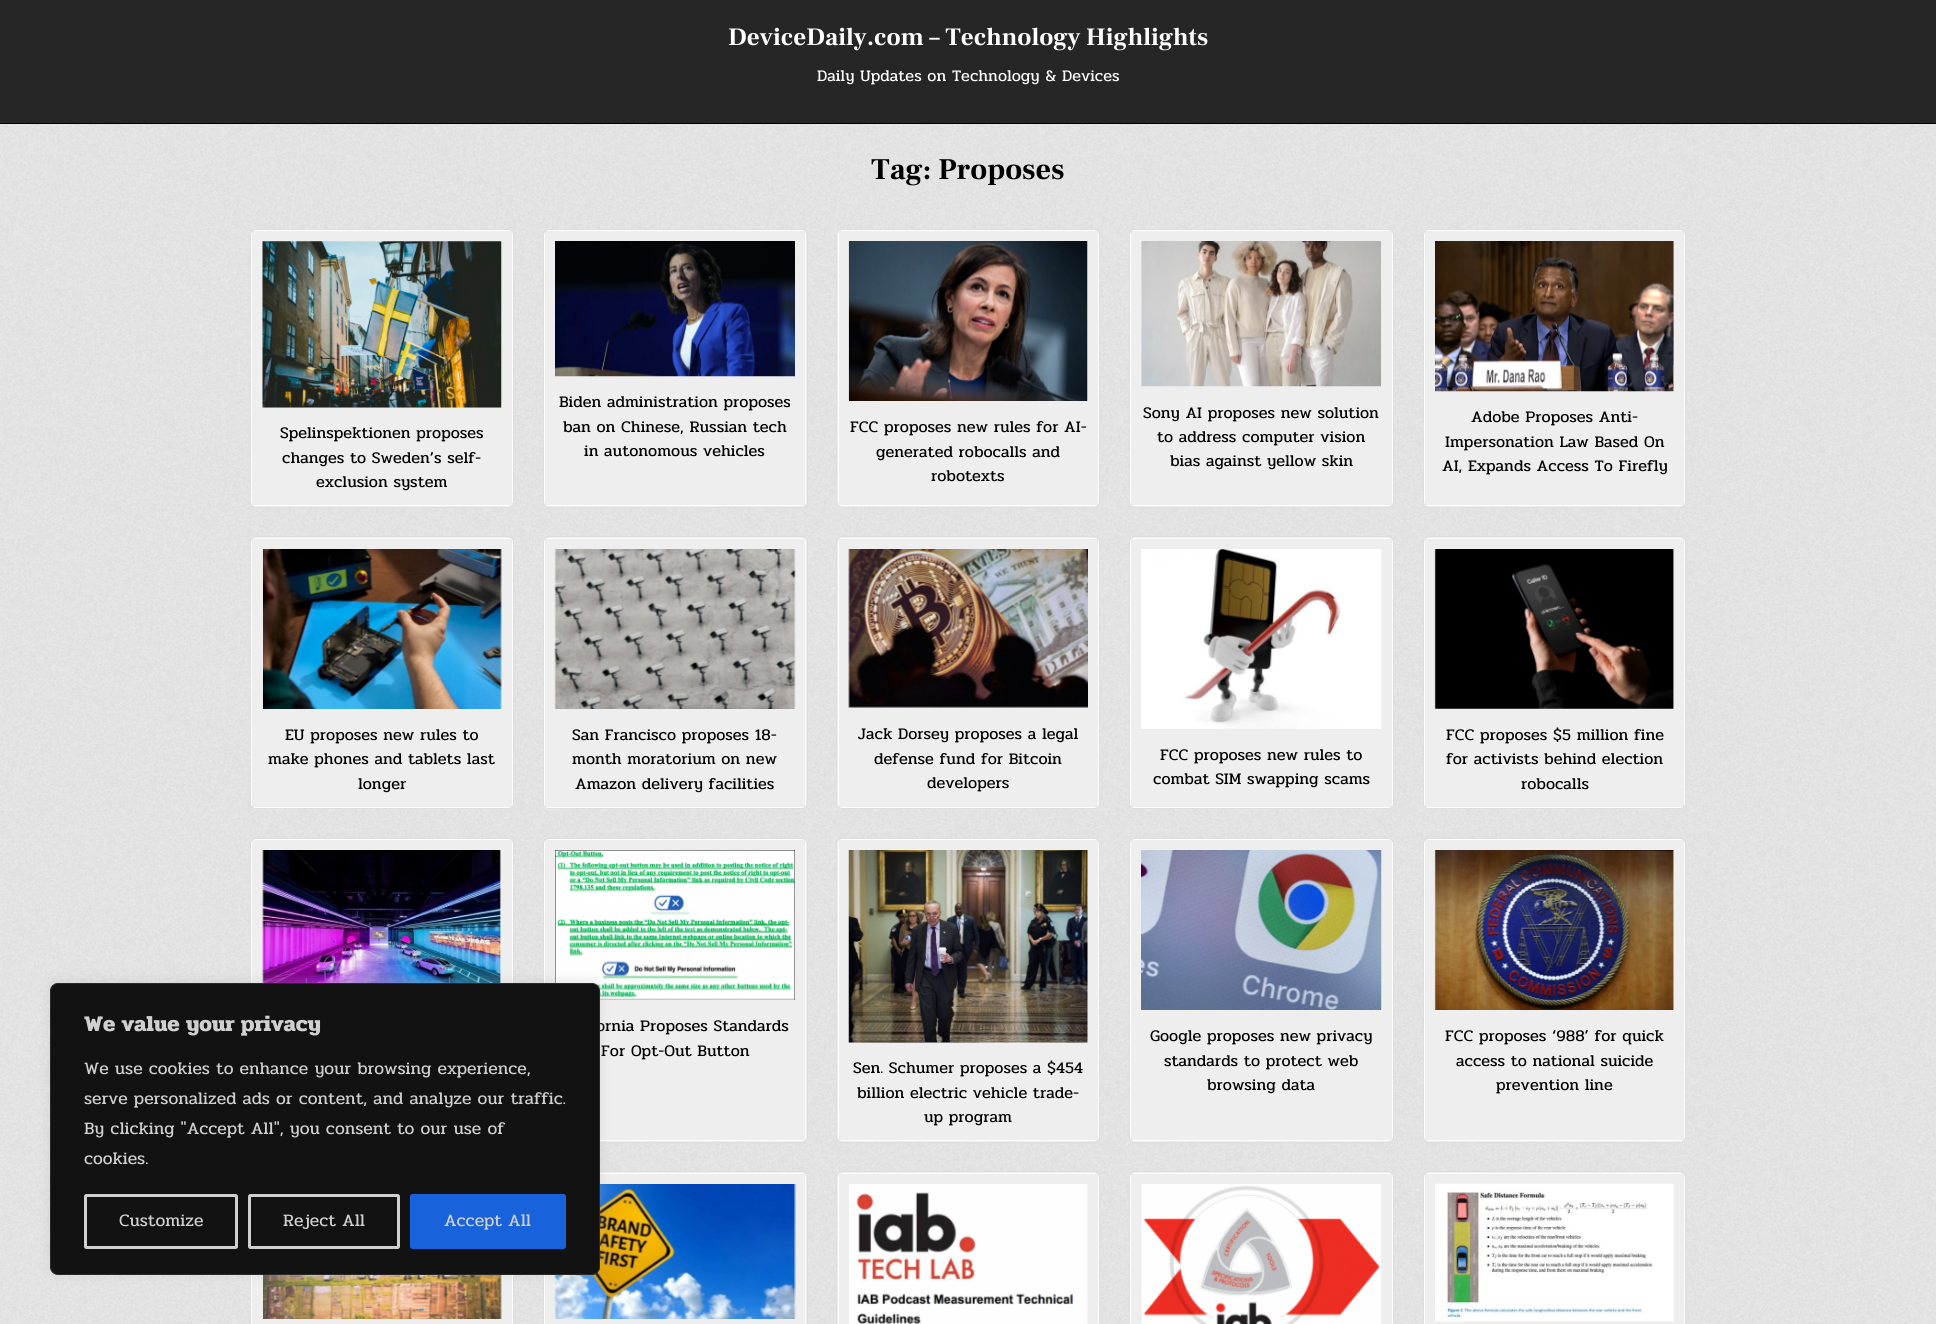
#include <cairo.h>
#include <math.h>
#include <stddef.h>

static cairo_t *ctx;

static void use_color(int r, int g, int b) {
    cairo_set_source_rgb(ctx, r / 255.0, g / 255.0, b / 255.0);
}

static void round_rect(double x, double y, double w, double h, double r) {
    cairo_new_sub_path(ctx);
    cairo_arc(ctx, x + w - r, y + h - r, r, 0, M_PI / 2);
    cairo_arc(ctx, x + r, y + h - r, r, M_PI / 2, M_PI);
    cairo_arc(ctx, x + r, y + r, r, M_PI, 1.5 * M_PI);
    cairo_arc(ctx, x + w - r, y + r, r, 1.5 * M_PI, 2 * M_PI);
    cairo_close_path(ctx);
}

static void shadow(double x, double y, double w, double h, double r, double blur, double alpha) {
    cairo_push_group_with_content(ctx, CAIRO_CONTENT_ALPHA);
    cairo_set_operator(ctx, CAIRO_OPERATOR_SOURCE);
    for (int i = 15; i >= -15 && fmin(w, h) + blur * i / 3 > 0; i -= 2) {
        double e = blur * i / 6;
        cairo_set_source_rgba(ctx, 0, 0, 0, alpha * erfc((i - 1) / 8.5) / 2);
        round_rect(x - e, y - e, w + 2 * e, h + 2 * e, fmax(0, fmin(r + e + blur * .6, fmin(w, h) / 2 + e)));
        cairo_fill(ctx);
    }
    cairo_pattern_t *soft = cairo_pop_group(ctx);
    cairo_mask(ctx, soft);
    cairo_pattern_destroy(soft);
}

static void picture(const char *path, double x, double y, double w, double h) {
    cairo_surface_t *image = cairo_image_surface_create_from_png(path);
    cairo_save(ctx);
    cairo_set_source_surface(ctx, image, x, y);
    cairo_rectangle(ctx, x, y, w, h);
    cairo_fill(ctx);
    cairo_restore(ctx);
    cairo_surface_destroy(image);
}

int main(void) {
    cairo_surface_t *surface = cairo_image_surface_create(CAIRO_FORMAT_RGB24, 1936, 1324);
    ctx = cairo_create(surface);
    cairo_font_options_t *options = cairo_font_options_create();
    cairo_font_options_set_hint_metrics(options, CAIRO_HINT_METRICS_OFF);
    cairo_font_options_set_hint_style(options, CAIRO_HINT_STYLE_NONE);
    cairo_set_font_options(ctx, options);
    cairo_set_miter_limit(ctx, 4);
    use_color(255, 255, 255);
    cairo_paint(ctx);
    picture("img1.png", 0, 124, 1936, 1200);
    use_color(38, 38, 38);
    cairo_rectangle(ctx, 0, 0, 1936, 123);
    cairo_fill(ctx);
    use_color(0, 0, 0);
    cairo_rectangle(ctx, 0, 123, 1936, 1);
    cairo_fill(ctx);
    cairo_select_font_face(ctx, "Frank Ruhl Libre", CAIRO_FONT_SLANT_NORMAL, CAIRO_FONT_WEIGHT_BOLD);
    cairo_set_font_size(ctx, 25);
    use_color(255, 255, 255);
    cairo_move_to(ctx, 728, 45);
    cairo_show_text(ctx, "DeviceDaily.com – Technology Highlights");
    cairo_select_font_face(ctx, "Pridi", CAIRO_FONT_SLANT_NORMAL, CAIRO_FONT_WEIGHT_NORMAL);
    cairo_set_font_size(ctx, 16.25);
    cairo_move_to(ctx, 817, 81);
    cairo_show_text(ctx, "Daily Updates on Technology & Devices");
    cairo_select_font_face(ctx, "Frank Ruhl Libre", CAIRO_FONT_SLANT_NORMAL, CAIRO_FONT_WEIGHT_BOLD);
    cairo_set_font_size(ctx, 30);
    use_color(0, 0, 0);
    cairo_move_to(ctx, 871, 179);
    cairo_show_text(ctx, "Tag: Proposes");
    use_color(238, 238, 238);
    round_rect(250.5, 229.5, 263, 278, 5.5);
    cairo_fill_preserve(ctx);
    use_color(221, 221, 221);
    cairo_set_line_width(ctx, 1);
    cairo_stroke(ctx);
    use_color(255, 255, 255);
    cairo_set_fill_rule(ctx, CAIRO_FILL_RULE_EVEN_ODD);
    cairo_new_path(ctx);
    cairo_move_to(ctx, 251, 235);
    cairo_line_to(ctx, 251, 501);
    cairo_curve_to(ctx, 251, 502, 251, 503, 252, 504);
    cairo_line_to(ctx, 252, 232);
    cairo_close_path(ctx);
    cairo_move_to(ctx, 256, 230);
    cairo_line_to(ctx, 253, 231);
    cairo_line_to(ctx, 511, 231);
    cairo_line_to(ctx, 508, 230);
    cairo_close_path(ctx);
    cairo_move_to(ctx, 513, 235);
    cairo_line_to(ctx, 512, 232);
    cairo_line_to(ctx, 512, 504);
    cairo_curve_to(ctx, 513, 503, 513, 502, 513, 501);
    cairo_close_path(ctx);
    cairo_move_to(ctx, 508, 506);
    cairo_line_to(ctx, 511, 505);
    cairo_line_to(ctx, 253, 505);
    cairo_curve_to(ctx, 254, 506, 255, 506, 256, 506);
    cairo_close_path(ctx);
    cairo_fill(ctx);
    picture("img2.png", 262, 241, 240, 167);
    cairo_select_font_face(ctx, "Pridi", CAIRO_FONT_SLANT_NORMAL, CAIRO_FONT_WEIGHT_NORMAL);
    cairo_set_font_size(ctx, 16.25);
    use_color(0, 0, 0);
    cairo_move_to(ctx, 280, 438);
    cairo_show_text(ctx, "Spelinspektionen proposes");
    cairo_move_to(ctx, 282, 463);
    cairo_show_text(ctx, "changes to Sweden’s self-");
    cairo_move_to(ctx, 316, 487);
    cairo_show_text(ctx, "exclusion system");
    use_color(238, 238, 238);
    round_rect(543.5, 229.5, 264, 278, 5.5);
    cairo_fill_preserve(ctx);
    use_color(221, 221, 221);
    cairo_stroke(ctx);
    use_color(255, 255, 255);
    cairo_new_path(ctx);
    cairo_move_to(ctx, 544, 235);
    cairo_line_to(ctx, 544, 501);
    cairo_curve_to(ctx, 544, 502, 544, 503, 545, 504);
    cairo_line_to(ctx, 545, 232);
    cairo_close_path(ctx);
    cairo_move_to(ctx, 549, 230);
    cairo_line_to(ctx, 546, 231);
    cairo_line_to(ctx, 804, 231);
    cairo_line_to(ctx, 801, 230);
    cairo_close_path(ctx);
    cairo_move_to(ctx, 806, 235);
    cairo_line_to(ctx, 805, 232);
    cairo_line_to(ctx, 805, 504);
    cairo_curve_to(ctx, 806, 503, 806, 502, 806, 501);
    cairo_close_path(ctx);
    cairo_move_to(ctx, 801, 506);
    cairo_line_to(ctx, 804, 505);
    cairo_line_to(ctx, 546, 505);
    cairo_curve_to(ctx, 547, 506, 548, 506, 549, 506);
    cairo_close_path(ctx);
    cairo_fill(ctx);
    picture("img3.png", 555, 241, 240, 136);
    use_color(0, 0, 0);
    cairo_move_to(ctx, 559, 407);
    cairo_show_text(ctx, "Biden administration proposes");
    cairo_move_to(ctx, 563, 432);
    cairo_show_text(ctx, "ban on Chinese, Russian tech");
    cairo_move_to(ctx, 584, 456);
    cairo_show_text(ctx, "in autonomous vehicles");
    use_color(238, 238, 238);
    round_rect(836.5, 229.5, 263, 278, 5.5);
    cairo_fill_preserve(ctx);
    use_color(221, 221, 221);
    cairo_stroke(ctx);
    use_color(255, 255, 255);
    cairo_new_path(ctx);
    cairo_move_to(ctx, 838, 235);
    cairo_line_to(ctx, 838, 501);
    cairo_curve_to(ctx, 838, 502, 838, 503, 839, 504);
    cairo_line_to(ctx, 839, 232);
    cairo_close_path(ctx);
    cairo_move_to(ctx, 843, 230);
    cairo_line_to(ctx, 840, 231);
    cairo_line_to(ctx, 1097, 231);
    cairo_line_to(ctx, 1094, 230);
    cairo_close_path(ctx);
    cairo_move_to(ctx, 1099, 235);
    cairo_line_to(ctx, 1098, 232);
    cairo_line_to(ctx, 1098, 504);
    cairo_curve_to(ctx, 1099, 503, 1099, 502, 1099, 501);
    cairo_close_path(ctx);
    cairo_move_to(ctx, 1094, 506);
    cairo_line_to(ctx, 1097, 505);
    cairo_line_to(ctx, 840, 505);
    cairo_curve_to(ctx, 841, 506, 842, 506, 843, 506);
    cairo_close_path(ctx);
    cairo_fill(ctx);
    picture("img4.png", 848, 241, 240, 160);
    use_color(0, 0, 0);
    cairo_move_to(ctx, 850, 432);
    cairo_show_text(ctx, "FCC proposes new rules for AI-");
    cairo_move_to(ctx, 876, 457);
    cairo_show_text(ctx, "generated robocalls and");
    cairo_move_to(ctx, 931, 481);
    cairo_show_text(ctx, "robotexts");
    use_color(238, 238, 238);
    round_rect(1129.5, 229.5, 264, 278, 5.5);
    cairo_fill_preserve(ctx);
    use_color(221, 221, 221);
    cairo_stroke(ctx);
    use_color(255, 255, 255);
    cairo_new_path(ctx);
    cairo_move_to(ctx, 1130, 235);
    cairo_line_to(ctx, 1130, 501);
    cairo_curve_to(ctx, 1130, 502, 1130, 503, 1131, 504);
    cairo_line_to(ctx, 1131, 232);
    cairo_close_path(ctx);
    cairo_move_to(ctx, 1135, 230);
    cairo_line_to(ctx, 1132, 231);
    cairo_line_to(ctx, 1391, 231);
    cairo_line_to(ctx, 1388, 230);
    cairo_close_path(ctx);
    cairo_move_to(ctx, 1393, 235);
    cairo_line_to(ctx, 1392, 232);
    cairo_line_to(ctx, 1392, 504);
    cairo_curve_to(ctx, 1393, 503, 1393, 502, 1393, 501);
    cairo_close_path(ctx);
    cairo_move_to(ctx, 1388, 506);
    cairo_line_to(ctx, 1391, 505);
    cairo_line_to(ctx, 1132, 505);
    cairo_curve_to(ctx, 1133, 506, 1134, 506, 1135, 506);
    cairo_close_path(ctx);
    cairo_fill(ctx);
    picture("img5.png", 1141, 241, 241, 146);
    use_color(0, 0, 0);
    cairo_move_to(ctx, 1143, 418);
    cairo_show_text(ctx, "Sony AI proposes new solution");
    cairo_move_to(ctx, 1157, 442);
    cairo_show_text(ctx, "to address computer vision");
    cairo_move_to(ctx, 1170, 466);
    cairo_show_text(ctx, "bias against yellow skin");
    use_color(238, 238, 238);
    round_rect(1423.5, 229.5, 262, 278, 5.5);
    cairo_fill_preserve(ctx);
    use_color(221, 221, 221);
    cairo_stroke(ctx);
    use_color(255, 255, 255);
    cairo_new_path(ctx);
    cairo_move_to(ctx, 1424, 235);
    cairo_line_to(ctx, 1424, 501);
    cairo_curve_to(ctx, 1424, 502, 1424, 503, 1425, 504);
    cairo_line_to(ctx, 1425, 232);
    cairo_close_path(ctx);
    cairo_move_to(ctx, 1429, 230);
    cairo_line_to(ctx, 1426, 231);
    cairo_line_to(ctx, 1683, 231);
    cairo_line_to(ctx, 1680, 230);
    cairo_close_path(ctx);
    cairo_move_to(ctx, 1685, 235);
    cairo_line_to(ctx, 1684, 232);
    cairo_line_to(ctx, 1684, 504);
    cairo_curve_to(ctx, 1685, 503, 1685, 502, 1685, 501);
    cairo_close_path(ctx);
    cairo_move_to(ctx, 1680, 506);
    cairo_line_to(ctx, 1683, 505);
    cairo_line_to(ctx, 1426, 505);
    cairo_curve_to(ctx, 1427, 506, 1428, 506, 1429, 506);
    cairo_close_path(ctx);
    cairo_fill(ctx);
    picture("img6.png", 1435, 241, 239, 151);
    use_color(0, 0, 0);
    cairo_move_to(ctx, 1471, 422);
    cairo_show_text(ctx, "Adobe Proposes Anti-");
    cairo_move_to(ctx, 1445, 447);
    cairo_show_text(ctx, "Impersonation Law Based On");
    cairo_move_to(ctx, 1442, 471);
    cairo_show_text(ctx, "AI, Expands Access To Firefly");
    use_color(238, 238, 238);
    round_rect(250.5, 536.5, 263, 272, 5.5);
    cairo_fill_preserve(ctx);
    use_color(221, 221, 221);
    cairo_stroke(ctx);
    use_color(255, 255, 255);
    cairo_new_path(ctx);
    cairo_move_to(ctx, 251, 543);
    cairo_line_to(ctx, 251, 803);
    cairo_curve_to(ctx, 251, 804, 251, 805, 252, 806);
    cairo_line_to(ctx, 252, 540);
    cairo_close_path(ctx);
    cairo_move_to(ctx, 256, 538);
    cairo_line_to(ctx, 253, 539);
    cairo_line_to(ctx, 511, 539);
    cairo_line_to(ctx, 508, 538);
    cairo_close_path(ctx);
    cairo_move_to(ctx, 513, 543);
    cairo_line_to(ctx, 512, 540);
    cairo_line_to(ctx, 512, 806);
    cairo_curve_to(ctx, 513, 805, 513, 804, 513, 803);
    cairo_close_path(ctx);
    cairo_move_to(ctx, 508, 808);
    cairo_line_to(ctx, 511, 807);
    cairo_line_to(ctx, 253, 807);
    cairo_curve_to(ctx, 254, 808, 255, 808, 256, 808);
    cairo_close_path(ctx);
    cairo_fill(ctx);
    picture("img7.png", 263, 549, 239, 160);
    use_color(0, 0, 0);
    cairo_move_to(ctx, 285, 740);
    cairo_show_text(ctx, "EU proposes new rules to");
    cairo_move_to(ctx, 268, 764);
    cairo_show_text(ctx, "make phones and tablets last");
    cairo_move_to(ctx, 358, 789);
    cairo_show_text(ctx, "longer");
    use_color(238, 238, 238);
    round_rect(543.5, 536.5, 264, 272, 5.5);
    cairo_fill_preserve(ctx);
    use_color(221, 221, 221);
    cairo_stroke(ctx);
    use_color(255, 255, 255);
    cairo_new_path(ctx);
    cairo_move_to(ctx, 544, 543);
    cairo_line_to(ctx, 544, 803);
    cairo_curve_to(ctx, 544, 804, 544, 805, 545, 806);
    cairo_line_to(ctx, 545, 540);
    cairo_close_path(ctx);
    cairo_move_to(ctx, 549, 538);
    cairo_line_to(ctx, 546, 539);
    cairo_line_to(ctx, 804, 539);
    cairo_line_to(ctx, 801, 538);
    cairo_close_path(ctx);
    cairo_move_to(ctx, 806, 543);
    cairo_line_to(ctx, 805, 540);
    cairo_line_to(ctx, 805, 806);
    cairo_curve_to(ctx, 806, 805, 806, 804, 806, 803);
    cairo_close_path(ctx);
    cairo_move_to(ctx, 801, 808);
    cairo_line_to(ctx, 804, 807);
    cairo_line_to(ctx, 546, 807);
    cairo_curve_to(ctx, 547, 808, 548, 808, 549, 808);
    cairo_close_path(ctx);
    cairo_fill(ctx);
    picture("img8.png", 554, 549, 242, 160);
    use_color(0, 0, 0);
    cairo_move_to(ctx, 572, 740);
    cairo_show_text(ctx, "San Francisco proposes 18-");
    cairo_move_to(ctx, 572, 764);
    cairo_show_text(ctx, "month moratorium on new");
    cairo_move_to(ctx, 575, 789);
    cairo_show_text(ctx, "Amazon delivery facilities");
    use_color(238, 238, 238);
    round_rect(836.5, 536.5, 263, 272, 5.5);
    cairo_fill_preserve(ctx);
    use_color(221, 221, 221);
    cairo_stroke(ctx);
    use_color(255, 255, 255);
    cairo_new_path(ctx);
    cairo_move_to(ctx, 838, 543);
    cairo_line_to(ctx, 838, 803);
    cairo_curve_to(ctx, 838, 804, 838, 805, 839, 806);
    cairo_line_to(ctx, 839, 540);
    cairo_close_path(ctx);
    cairo_move_to(ctx, 843, 538);
    cairo_line_to(ctx, 840, 539);
    cairo_line_to(ctx, 1097, 539);
    cairo_line_to(ctx, 1094, 538);
    cairo_close_path(ctx);
    cairo_move_to(ctx, 1099, 543);
    cairo_line_to(ctx, 1098, 540);
    cairo_line_to(ctx, 1098, 806);
    cairo_curve_to(ctx, 1099, 805, 1099, 804, 1099, 803);
    cairo_close_path(ctx);
    cairo_move_to(ctx, 1094, 808);
    cairo_line_to(ctx, 1097, 807);
    cairo_line_to(ctx, 840, 807);
    cairo_curve_to(ctx, 841, 808, 842, 808, 843, 808);
    cairo_close_path(ctx);
    cairo_fill(ctx);
    picture("img9.png", 848, 549, 240, 159);
    use_color(0, 0, 0);
    cairo_move_to(ctx, 858, 739);
    cairo_show_text(ctx, "Jack Dorsey proposes a legal");
    cairo_move_to(ctx, 874, 764);
    cairo_show_text(ctx, "defense fund for Bitcoin");
    cairo_move_to(ctx, 927, 788);
    cairo_show_text(ctx, "developers");
    use_color(238, 238, 238);
    round_rect(1129.5, 536.5, 264, 272, 5.5);
    cairo_fill_preserve(ctx);
    use_color(221, 221, 221);
    cairo_stroke(ctx);
    use_color(255, 255, 255);
    cairo_new_path(ctx);
    cairo_move_to(ctx, 1130, 543);
    cairo_line_to(ctx, 1130, 803);
    cairo_curve_to(ctx, 1130, 804, 1130, 805, 1131, 806);
    cairo_line_to(ctx, 1131, 540);
    cairo_close_path(ctx);
    cairo_move_to(ctx, 1135, 538);
    cairo_line_to(ctx, 1132, 539);
    cairo_line_to(ctx, 1391, 539);
    cairo_line_to(ctx, 1388, 538);
    cairo_close_path(ctx);
    cairo_move_to(ctx, 1393, 543);
    cairo_line_to(ctx, 1392, 540);
    cairo_line_to(ctx, 1392, 806);
    cairo_curve_to(ctx, 1393, 805, 1393, 804, 1393, 803);
    cairo_close_path(ctx);
    cairo_move_to(ctx, 1388, 808);
    cairo_line_to(ctx, 1391, 807);
    cairo_line_to(ctx, 1132, 807);
    cairo_curve_to(ctx, 1133, 808, 1134, 808, 1135, 808);
    cairo_close_path(ctx);
    cairo_fill(ctx);
    picture("img10.png", 1141, 549, 241, 180);
    use_color(0, 0, 0);
    cairo_move_to(ctx, 1160, 760);
    cairo_show_text(ctx, "FCC proposes new rules to");
    cairo_move_to(ctx, 1153, 784);
    cairo_show_text(ctx, "combat SIM swapping scams");
    use_color(238, 238, 238);
    round_rect(1423.5, 536.5, 262, 272, 5.5);
    cairo_fill_preserve(ctx);
    use_color(221, 221, 221);
    cairo_stroke(ctx);
    use_color(255, 255, 255);
    cairo_new_path(ctx);
    cairo_move_to(ctx, 1424, 543);
    cairo_line_to(ctx, 1424, 803);
    cairo_curve_to(ctx, 1424, 804, 1424, 805, 1425, 806);
    cairo_line_to(ctx, 1425, 540);
    cairo_close_path(ctx);
    cairo_move_to(ctx, 1429, 538);
    cairo_line_to(ctx, 1426, 539);
    cairo_line_to(ctx, 1683, 539);
    cairo_line_to(ctx, 1680, 538);
    cairo_close_path(ctx);
    cairo_move_to(ctx, 1685, 543);
    cairo_line_to(ctx, 1684, 540);
    cairo_line_to(ctx, 1684, 806);
    cairo_curve_to(ctx, 1685, 805, 1685, 804, 1685, 803);
    cairo_close_path(ctx);
    cairo_move_to(ctx, 1680, 808);
    cairo_line_to(ctx, 1683, 807);
    cairo_line_to(ctx, 1426, 807);
    cairo_curve_to(ctx, 1427, 808, 1428, 808, 1429, 808);
    cairo_close_path(ctx);
    cairo_fill(ctx);
    picture("img11.png", 1434, 549, 240, 160);
    use_color(0, 0, 0);
    cairo_move_to(ctx, 1446, 740);
    cairo_show_text(ctx, "FCC proposes $5 million fine");
    cairo_move_to(ctx, 1446, 764);
    cairo_show_text(ctx, "for activists behind election");
    cairo_move_to(ctx, 1521, 789);
    cairo_show_text(ctx, "robocalls");
    use_color(238, 238, 238);
    round_rect(250.5, 838.5, 263, 304, 5.5);
    cairo_fill_preserve(ctx);
    use_color(221, 221, 221);
    cairo_stroke(ctx);
    use_color(255, 255, 255);
    cairo_new_path(ctx);
    cairo_move_to(ctx, 251, 844);
    cairo_line_to(ctx, 251, 1136);
    cairo_curve_to(ctx, 251, 1137, 251, 1138, 252, 1139);
    cairo_line_to(ctx, 252, 841);
    cairo_close_path(ctx);
    cairo_move_to(ctx, 256, 839);
    cairo_line_to(ctx, 253, 840);
    cairo_line_to(ctx, 511, 840);
    cairo_line_to(ctx, 508, 839);
    cairo_close_path(ctx);
    cairo_move_to(ctx, 513, 844);
    cairo_line_to(ctx, 512, 841);
    cairo_line_to(ctx, 512, 1139);
    cairo_curve_to(ctx, 513, 1138, 513, 1137, 513, 1136);
    cairo_close_path(ctx);
    cairo_move_to(ctx, 508, 1141);
    cairo_line_to(ctx, 511, 1140);
    cairo_line_to(ctx, 253, 1140);
    cairo_curve_to(ctx, 254, 1141, 255, 1141, 256, 1141);
    cairo_close_path(ctx);
    cairo_fill(ctx);
    picture("img12.png", 262, 850, 240, 133);
    use_color(238, 238, 238);
    round_rect(543.5, 838.5, 264, 304, 5.5);
    cairo_fill_preserve(ctx);
    use_color(221, 221, 221);
    cairo_stroke(ctx);
    use_color(255, 255, 255);
    cairo_new_path(ctx);
    cairo_move_to(ctx, 544, 844);
    cairo_line_to(ctx, 544, 1136);
    cairo_curve_to(ctx, 544, 1137, 544, 1138, 545, 1139);
    cairo_line_to(ctx, 545, 841);
    cairo_close_path(ctx);
    cairo_move_to(ctx, 549, 839);
    cairo_line_to(ctx, 546, 840);
    cairo_line_to(ctx, 804, 840);
    cairo_line_to(ctx, 801, 839);
    cairo_close_path(ctx);
    cairo_move_to(ctx, 806, 844);
    cairo_line_to(ctx, 805, 841);
    cairo_line_to(ctx, 805, 1139);
    cairo_curve_to(ctx, 806, 1138, 806, 1137, 806, 1136);
    cairo_close_path(ctx);
    cairo_move_to(ctx, 801, 1141);
    cairo_line_to(ctx, 804, 1140);
    cairo_line_to(ctx, 546, 1140);
    cairo_curve_to(ctx, 547, 1141, 548, 1141, 549, 1141);
    cairo_close_path(ctx);
    cairo_fill(ctx);
    picture("img13.png", 555, 850, 240, 150);
    use_color(0, 0, 0);
    cairo_move_to(ctx, 596, 1031);
    cairo_show_text(ctx, "ornia Proposes Standards");
    cairo_move_to(ctx, 601, 1056);
    cairo_show_text(ctx, "For Opt-Out Button");
    use_color(238, 238, 238);
    round_rect(836.5, 838.5, 263, 304, 5.5);
    cairo_fill_preserve(ctx);
    use_color(221, 221, 221);
    cairo_stroke(ctx);
    use_color(255, 255, 255);
    cairo_new_path(ctx);
    cairo_move_to(ctx, 838, 844);
    cairo_line_to(ctx, 838, 1136);
    cairo_curve_to(ctx, 838, 1137, 838, 1138, 839, 1139);
    cairo_line_to(ctx, 839, 841);
    cairo_close_path(ctx);
    cairo_move_to(ctx, 843, 839);
    cairo_line_to(ctx, 840, 840);
    cairo_line_to(ctx, 1097, 840);
    cairo_line_to(ctx, 1094, 839);
    cairo_close_path(ctx);
    cairo_move_to(ctx, 1099, 844);
    cairo_line_to(ctx, 1098, 841);
    cairo_line_to(ctx, 1098, 1139);
    cairo_curve_to(ctx, 1099, 1138, 1099, 1137, 1099, 1136);
    cairo_close_path(ctx);
    cairo_move_to(ctx, 1094, 1141);
    cairo_line_to(ctx, 1097, 1140);
    cairo_line_to(ctx, 840, 1140);
    cairo_curve_to(ctx, 841, 1141, 842, 1141, 843, 1141);
    cairo_close_path(ctx);
    cairo_fill(ctx);
    picture("img14.png", 848, 850, 240, 193);
    use_color(0, 0, 0);
    cairo_move_to(ctx, 853, 1073);
    cairo_show_text(ctx, "Sen. Schumer proposes a $454");
    cairo_move_to(ctx, 857, 1098);
    cairo_show_text(ctx, "billion electric vehicle trade-");
    cairo_move_to(ctx, 924, 1122);
    cairo_show_text(ctx, "up program");
    use_color(238, 238, 238);
    round_rect(1129.5, 838.5, 264, 304, 5.5);
    cairo_fill_preserve(ctx);
    use_color(221, 221, 221);
    cairo_stroke(ctx);
    use_color(255, 255, 255);
    cairo_new_path(ctx);
    cairo_move_to(ctx, 1130, 844);
    cairo_line_to(ctx, 1130, 1136);
    cairo_curve_to(ctx, 1130, 1137, 1130, 1138, 1131, 1139);
    cairo_line_to(ctx, 1131, 841);
    cairo_close_path(ctx);
    cairo_move_to(ctx, 1135, 839);
    cairo_line_to(ctx, 1132, 840);
    cairo_line_to(ctx, 1391, 840);
    cairo_line_to(ctx, 1388, 839);
    cairo_close_path(ctx);
    cairo_move_to(ctx, 1393, 844);
    cairo_line_to(ctx, 1392, 841);
    cairo_line_to(ctx, 1392, 1139);
    cairo_curve_to(ctx, 1393, 1138, 1393, 1137, 1393, 1136);
    cairo_close_path(ctx);
    cairo_move_to(ctx, 1388, 1141);
    cairo_line_to(ctx, 1391, 1140);
    cairo_line_to(ctx, 1132, 1140);
    cairo_curve_to(ctx, 1133, 1141, 1134, 1141, 1135, 1141);
    cairo_close_path(ctx);
    cairo_fill(ctx);
    picture("img15.png", 1141, 850, 241, 160);
    use_color(0, 0, 0);
    cairo_move_to(ctx, 1150, 1041);
    cairo_show_text(ctx, "Google proposes new privacy");
    cairo_move_to(ctx, 1164, 1066);
    cairo_show_text(ctx, "standards to protect web");
    cairo_move_to(ctx, 1207, 1090);
    cairo_show_text(ctx, "browsing data");
    use_color(238, 238, 238);
    round_rect(1423.5, 838.5, 262, 304, 5.5);
    cairo_fill_preserve(ctx);
    use_color(221, 221, 221);
    cairo_stroke(ctx);
    use_color(255, 255, 255);
    cairo_new_path(ctx);
    cairo_move_to(ctx, 1424, 844);
    cairo_line_to(ctx, 1424, 1136);
    cairo_curve_to(ctx, 1424, 1137, 1424, 1138, 1425, 1139);
    cairo_line_to(ctx, 1425, 841);
    cairo_close_path(ctx);
    cairo_move_to(ctx, 1429, 839);
    cairo_line_to(ctx, 1426, 840);
    cairo_line_to(ctx, 1683, 840);
    cairo_line_to(ctx, 1680, 839);
    cairo_close_path(ctx);
    cairo_move_to(ctx, 1685, 844);
    cairo_line_to(ctx, 1684, 841);
    cairo_line_to(ctx, 1684, 1139);
    cairo_curve_to(ctx, 1685, 1138, 1685, 1137, 1685, 1136);
    cairo_close_path(ctx);
    cairo_move_to(ctx, 1680, 1141);
    cairo_line_to(ctx, 1683, 1140);
    cairo_line_to(ctx, 1426, 1140);
    cairo_curve_to(ctx, 1427, 1141, 1428, 1141, 1429, 1141);
    cairo_close_path(ctx);
    cairo_fill(ctx);
    picture("img16.png", 1434, 850, 240, 160);
    use_color(0, 0, 0);
    cairo_move_to(ctx, 1445, 1041);
    cairo_show_text(ctx, "FCC proposes ‘988’ for quick");
    cairo_move_to(ctx, 1456, 1066);
    cairo_show_text(ctx, "access to national suicide");
    cairo_move_to(ctx, 1496, 1090);
    cairo_show_text(ctx, "prevention line");
    use_color(238, 238, 238);
    cairo_rectangle(ctx, 252, 1275, 260, 49);
    cairo_fill(ctx);
    cairo_rectangle(ctx, 250.5, 1171.5, 263, 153);
    use_color(221, 221, 221);
    cairo_stroke(ctx);
    use_color(255, 255, 255);
    cairo_new_path(ctx);
    cairo_move_to(ctx, 251, 1178);
    cairo_line_to(ctx, 251, 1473);
    cairo_curve_to(ctx, 251, 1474, 251, 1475, 252, 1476);
    cairo_line_to(ctx, 252, 1175);
    cairo_close_path(ctx);
    cairo_move_to(ctx, 256, 1173);
    cairo_line_to(ctx, 253, 1174);
    cairo_line_to(ctx, 511, 1174);
    cairo_line_to(ctx, 508, 1173);
    cairo_close_path(ctx);
    cairo_move_to(ctx, 513, 1178);
    cairo_line_to(ctx, 512, 1175);
    cairo_line_to(ctx, 512, 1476);
    cairo_curve_to(ctx, 513, 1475, 513, 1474, 513, 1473);
    cairo_close_path(ctx);
    cairo_move_to(ctx, 508, 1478);
    cairo_line_to(ctx, 511, 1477);
    cairo_line_to(ctx, 253, 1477);
    cairo_curve_to(ctx, 254, 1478, 255, 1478, 256, 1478);
    cairo_close_path(ctx);
    cairo_fill(ctx);
    picture("img17.png", 263, 1275, 239, 44);
    use_color(238, 238, 238);
    round_rect(543.5, 1171.5, 264, 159, 5.5);
    cairo_fill_preserve(ctx);
    use_color(221, 221, 221);
    cairo_stroke(ctx);
    use_color(255, 255, 255);
    cairo_new_path(ctx);
    cairo_move_to(ctx, 544, 1178);
    cairo_line_to(ctx, 544, 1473);
    cairo_curve_to(ctx, 544, 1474, 544, 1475, 545, 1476);
    cairo_line_to(ctx, 545, 1175);
    cairo_close_path(ctx);
    cairo_move_to(ctx, 549, 1173);
    cairo_line_to(ctx, 546, 1174);
    cairo_line_to(ctx, 804, 1174);
    cairo_line_to(ctx, 801, 1173);
    cairo_close_path(ctx);
    cairo_move_to(ctx, 806, 1178);
    cairo_line_to(ctx, 805, 1175);
    cairo_line_to(ctx, 805, 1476);
    cairo_curve_to(ctx, 806, 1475, 806, 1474, 806, 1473);
    cairo_close_path(ctx);
    cairo_move_to(ctx, 801, 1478);
    cairo_line_to(ctx, 804, 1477);
    cairo_line_to(ctx, 546, 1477);
    cairo_curve_to(ctx, 547, 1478, 548, 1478, 549, 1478);
    cairo_close_path(ctx);
    cairo_fill(ctx);
    picture("img18.png", 554, 1184, 242, 135);
    use_color(238, 238, 238);
    round_rect(836.5, 1171.5, 263, 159, 5.5);
    cairo_fill_preserve(ctx);
    use_color(221, 221, 221);
    cairo_stroke(ctx);
    use_color(255, 255, 255);
    cairo_new_path(ctx);
    cairo_move_to(ctx, 838, 1178);
    cairo_line_to(ctx, 838, 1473);
    cairo_curve_to(ctx, 838, 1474, 838, 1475, 839, 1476);
    cairo_line_to(ctx, 839, 1175);
    cairo_close_path(ctx);
    cairo_move_to(ctx, 843, 1173);
    cairo_line_to(ctx, 840, 1174);
    cairo_line_to(ctx, 1097, 1174);
    cairo_line_to(ctx, 1094, 1173);
    cairo_close_path(ctx);
    cairo_move_to(ctx, 1099, 1178);
    cairo_line_to(ctx, 1098, 1175);
    cairo_line_to(ctx, 1098, 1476);
    cairo_curve_to(ctx, 1099, 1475, 1099, 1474, 1099, 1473);
    cairo_close_path(ctx);
    cairo_move_to(ctx, 1094, 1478);
    cairo_line_to(ctx, 1097, 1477);
    cairo_line_to(ctx, 840, 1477);
    cairo_curve_to(ctx, 841, 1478, 842, 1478, 843, 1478);
    cairo_close_path(ctx);
    cairo_fill(ctx);
    picture("img19.png", 849, 1184, 239, 140);
    use_color(238, 238, 238);
    round_rect(1129.5, 1171.5, 264, 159, 5.5);
    cairo_fill_preserve(ctx);
    use_color(221, 221, 221);
    cairo_stroke(ctx);
    use_color(255, 255, 255);
    cairo_new_path(ctx);
    cairo_move_to(ctx, 1130, 1178);
    cairo_line_to(ctx, 1130, 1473);
    cairo_curve_to(ctx, 1130, 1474, 1130, 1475, 1131, 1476);
    cairo_line_to(ctx, 1131, 1175);
    cairo_close_path(ctx);
    cairo_move_to(ctx, 1135, 1173);
    cairo_line_to(ctx, 1132, 1174);
    cairo_line_to(ctx, 1391, 1174);
    cairo_line_to(ctx, 1388, 1173);
    cairo_close_path(ctx);
    cairo_move_to(ctx, 1393, 1178);
    cairo_line_to(ctx, 1392, 1175);
    cairo_line_to(ctx, 1392, 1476);
    cairo_curve_to(ctx, 1393, 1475, 1393, 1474, 1393, 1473);
    cairo_close_path(ctx);
    cairo_move_to(ctx, 1388, 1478);
    cairo_line_to(ctx, 1391, 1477);
    cairo_line_to(ctx, 1132, 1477);
    cairo_curve_to(ctx, 1133, 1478, 1134, 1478, 1135, 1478);
    cairo_close_path(ctx);
    cairo_fill(ctx);
    picture("img20.png", 1141, 1184, 241, 140);
    use_color(238, 238, 238);
    round_rect(1423.5, 1171.5, 262, 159, 5.5);
    cairo_fill_preserve(ctx);
    use_color(221, 221, 221);
    cairo_stroke(ctx);
    use_color(255, 255, 255);
    cairo_new_path(ctx);
    cairo_move_to(ctx, 1424, 1178);
    cairo_line_to(ctx, 1424, 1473);
    cairo_curve_to(ctx, 1424, 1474, 1424, 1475, 1425, 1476);
    cairo_line_to(ctx, 1425, 1175);
    cairo_close_path(ctx);
    cairo_move_to(ctx, 1429, 1173);
    cairo_line_to(ctx, 1426, 1174);
    cairo_line_to(ctx, 1683, 1174);
    cairo_line_to(ctx, 1680, 1173);
    cairo_close_path(ctx);
    cairo_move_to(ctx, 1685, 1178);
    cairo_line_to(ctx, 1684, 1175);
    cairo_line_to(ctx, 1684, 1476);
    cairo_curve_to(ctx, 1685, 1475, 1685, 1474, 1685, 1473);
    cairo_close_path(ctx);
    cairo_move_to(ctx, 1680, 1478);
    cairo_line_to(ctx, 1683, 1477);
    cairo_line_to(ctx, 1426, 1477);
    cairo_curve_to(ctx, 1427, 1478, 1428, 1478, 1429, 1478);
    cairo_close_path(ctx);
    cairo_fill(ctx);
    picture("img21.png", 1435, 1183, 239, 139);
    use_color(172, 171, 171);
    shadow(50, 981, 550, 293, 8, 6, 0.3);
    use_color(18, 18, 18);
    round_rect(50.5, 983.5, 549, 291, 7.5);
    cairo_fill_preserve(ctx);
    use_color(42, 42, 42);
    cairo_stroke(ctx);
    cairo_select_font_face(ctx, "Pridi", CAIRO_FONT_SLANT_NORMAL, CAIRO_FONT_WEIGHT_BOLD);
    cairo_set_font_size(ctx, 22.5);
    use_color(208, 208, 208);
    cairo_move_to(ctx, 84, 1031);
    cairo_show_text(ctx, "We value your privacy");
    cairo_select_font_face(ctx, "Pridi", CAIRO_FONT_SLANT_NORMAL, CAIRO_FONT_WEIGHT_NORMAL);
    cairo_set_font_size(ctx, 17.5);
    cairo_move_to(ctx, 84, 1074);
    cairo_show_text(ctx, "We use cookies to enhance your browsing experience,");
    cairo_move_to(ctx, 84, 1104);
    cairo_show_text(ctx, "serve personalized ads or content, and analyze our traffic.");
    cairo_move_to(ctx, 84, 1134);
    cairo_show_text(ctx, "By clicking \"Accept All\", you consent to our use of");
    cairo_move_to(ctx, 84, 1164);
    cairo_show_text(ctx, "cookies.");
    round_rect(85.5, 1195.5, 151, 52, 1);
    cairo_set_line_width(ctx, 3);
    cairo_stroke(ctx);
    cairo_move_to(ctx, 119, 1226);
    cairo_show_text(ctx, "Customize");
    round_rect(249.5, 1195.5, 149, 52, 1);
    cairo_stroke(ctx);
    cairo_move_to(ctx, 283, 1226);
    cairo_show_text(ctx, "Reject All");
    use_color(24, 99, 220);
    round_rect(411.5, 1195.5, 153, 52, 1);
    cairo_fill_preserve(ctx);
    cairo_stroke(ctx);
    use_color(208, 208, 208);
    cairo_move_to(ctx, 444, 1226);
    cairo_show_text(ctx, "Accept All");
    cairo_surface_write_to_png(surface, "result.png");
    cairo_font_options_destroy(options);
    cairo_destroy(ctx);
    cairo_surface_destroy(surface);
    return 0;
}
